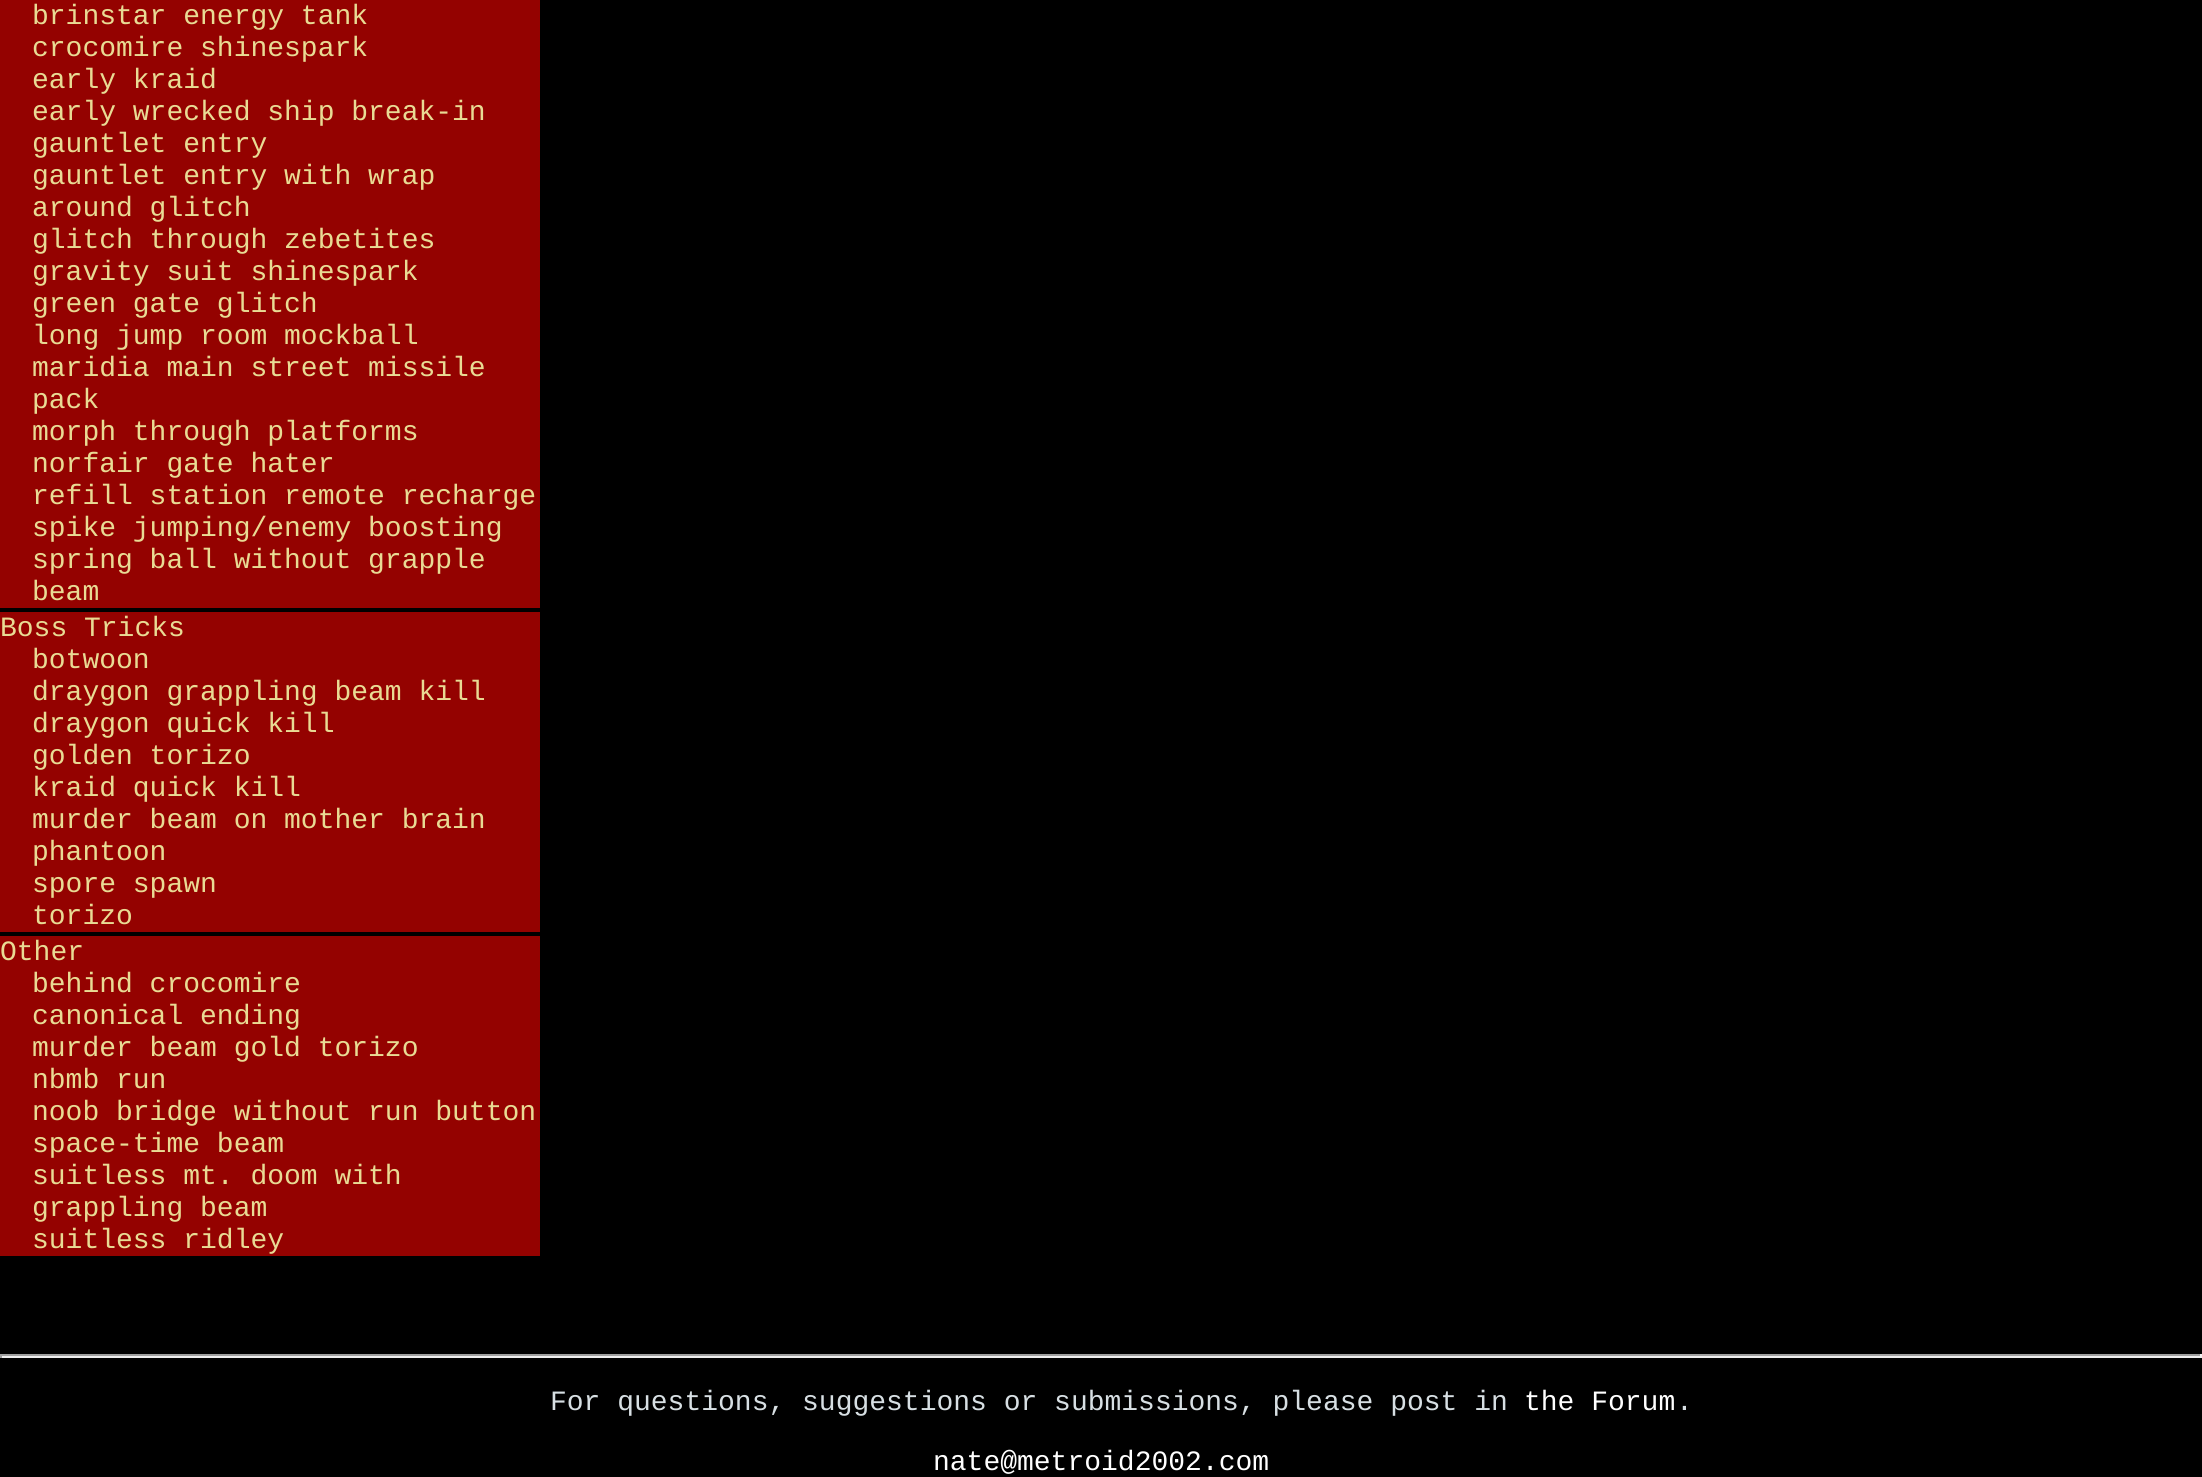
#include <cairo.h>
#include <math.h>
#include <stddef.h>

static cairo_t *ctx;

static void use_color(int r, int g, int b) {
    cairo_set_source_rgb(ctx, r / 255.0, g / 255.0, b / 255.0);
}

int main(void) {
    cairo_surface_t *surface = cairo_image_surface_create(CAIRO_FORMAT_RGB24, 2202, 1477);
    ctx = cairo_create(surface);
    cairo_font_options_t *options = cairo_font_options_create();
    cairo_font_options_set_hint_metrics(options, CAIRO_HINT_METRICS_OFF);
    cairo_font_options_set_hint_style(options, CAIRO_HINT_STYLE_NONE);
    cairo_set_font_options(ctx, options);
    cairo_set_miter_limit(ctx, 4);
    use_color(0, 0, 0);
    cairo_paint(ctx);
    use_color(148, 2, 0);
    cairo_rectangle(ctx, 0, 0, 540, 608);
    cairo_fill(ctx);
    cairo_select_font_face(ctx, "Liberation Mono", CAIRO_FONT_SLANT_NORMAL, CAIRO_FONT_WEIGHT_NORMAL);
    cairo_set_font_size(ctx, 28);
    use_color(233, 219, 148);
    cairo_move_to(ctx, 32, 24);
    cairo_show_text(ctx, "brinstar energy tank");
    cairo_move_to(ctx, 32, 56);
    cairo_show_text(ctx, "crocomire shinespark");
    cairo_move_to(ctx, 32, 88);
    cairo_show_text(ctx, "early kraid");
    cairo_move_to(ctx, 32, 120);
    cairo_show_text(ctx, "early wrecked ship break-in");
    cairo_move_to(ctx, 32, 152);
    cairo_show_text(ctx, "gauntlet entry");
    cairo_move_to(ctx, 32, 184);
    cairo_show_text(ctx, "gauntlet entry with wrap");
    cairo_move_to(ctx, 32, 216);
    cairo_show_text(ctx, "around glitch");
    cairo_move_to(ctx, 32, 248);
    cairo_show_text(ctx, "glitch through zebetites");
    cairo_move_to(ctx, 32, 280);
    cairo_show_text(ctx, "gravity suit shinespark");
    cairo_move_to(ctx, 32, 312);
    cairo_show_text(ctx, "green gate glitch");
    cairo_move_to(ctx, 32, 344);
    cairo_show_text(ctx, "long jump room mockball");
    cairo_move_to(ctx, 32, 376);
    cairo_show_text(ctx, "maridia main street missile");
    cairo_move_to(ctx, 32, 408);
    cairo_show_text(ctx, "pack");
    cairo_move_to(ctx, 32, 440);
    cairo_show_text(ctx, "morph through platforms");
    cairo_move_to(ctx, 32, 472);
    cairo_show_text(ctx, "norfair gate hater");
    cairo_move_to(ctx, 32, 504);
    cairo_show_text(ctx, "refill station remote recharge");
    cairo_move_to(ctx, 32, 536);
    cairo_show_text(ctx, "spike jumping/enemy boosting");
    cairo_move_to(ctx, 32, 568);
    cairo_show_text(ctx, "spring ball without grapple");
    cairo_move_to(ctx, 32, 600);
    cairo_show_text(ctx, "beam");
    use_color(148, 2, 0);
    cairo_rectangle(ctx, 0, 612, 540, 320);
    cairo_fill(ctx);
    use_color(233, 219, 148);
    cairo_move_to(ctx, 0, 636);
    cairo_show_text(ctx, "Boss Tricks");
    cairo_move_to(ctx, 32, 668);
    cairo_show_text(ctx, "botwoon");
    cairo_move_to(ctx, 32, 700);
    cairo_show_text(ctx, "draygon grappling beam kill");
    cairo_move_to(ctx, 32, 732);
    cairo_show_text(ctx, "draygon quick kill");
    cairo_move_to(ctx, 32, 764);
    cairo_show_text(ctx, "golden torizo");
    cairo_move_to(ctx, 32, 796);
    cairo_show_text(ctx, "kraid quick kill");
    cairo_move_to(ctx, 32, 828);
    cairo_show_text(ctx, "murder beam on mother brain");
    cairo_move_to(ctx, 32, 860);
    cairo_show_text(ctx, "phantoon");
    cairo_move_to(ctx, 32, 892);
    cairo_show_text(ctx, "spore spawn");
    cairo_move_to(ctx, 32, 924);
    cairo_show_text(ctx, "torizo");
    use_color(148, 2, 0);
    cairo_rectangle(ctx, 0, 936, 540, 320);
    cairo_fill(ctx);
    use_color(233, 219, 148);
    cairo_move_to(ctx, 0, 960);
    cairo_show_text(ctx, "Other");
    cairo_move_to(ctx, 32, 992);
    cairo_show_text(ctx, "behind crocomire");
    cairo_move_to(ctx, 32, 1024);
    cairo_show_text(ctx, "canonical ending");
    cairo_move_to(ctx, 32, 1056);
    cairo_show_text(ctx, "murder beam gold torizo");
    cairo_move_to(ctx, 32, 1088);
    cairo_show_text(ctx, "nbmb run");
    cairo_move_to(ctx, 32, 1120);
    cairo_show_text(ctx, "noob bridge without run button");
    cairo_move_to(ctx, 32, 1152);
    cairo_show_text(ctx, "space-time beam");
    cairo_move_to(ctx, 32, 1184);
    cairo_show_text(ctx, "suitless mt. doom with");
    cairo_move_to(ctx, 32, 1216);
    cairo_show_text(ctx, "grappling beam");
    cairo_move_to(ctx, 32, 1248);
    cairo_show_text(ctx, "suitless ridley");
    use_color(159, 159, 159);
    cairo_rectangle(ctx, 0, 1354, 2202, 2);
    cairo_fill(ctx);
    use_color(238, 238, 238);
    cairo_rectangle(ctx, 2200, 1354, 2, 4);
    cairo_fill(ctx);
    cairo_rectangle(ctx, 0, 1356, 2202, 2);
    cairo_fill(ctx);
    use_color(159, 159, 159);
    cairo_rectangle(ctx, 0, 1354, 2, 4);
    cairo_fill(ctx);
    use_color(215, 223, 227);
    cairo_move_to(ctx, 550, 1410);
    cairo_show_text(ctx, "For questions, suggestions or submissions, please post in");
    use_color(255, 255, 255);
    cairo_move_to(ctx, 1524, 1410);
    cairo_show_text(ctx, "the Forum");
    use_color(215, 223, 227);
    cairo_move_to(ctx, 1676, 1410);
    cairo_show_text(ctx, ".");
    use_color(255, 255, 255);
    cairo_move_to(ctx, 933, 1470);
    cairo_show_text(ctx, "nate@metroid2002.com");
    cairo_surface_write_to_png(surface, "result.png");
    cairo_font_options_destroy(options);
    cairo_destroy(ctx);
    cairo_surface_destroy(surface);
    return 0;
}
